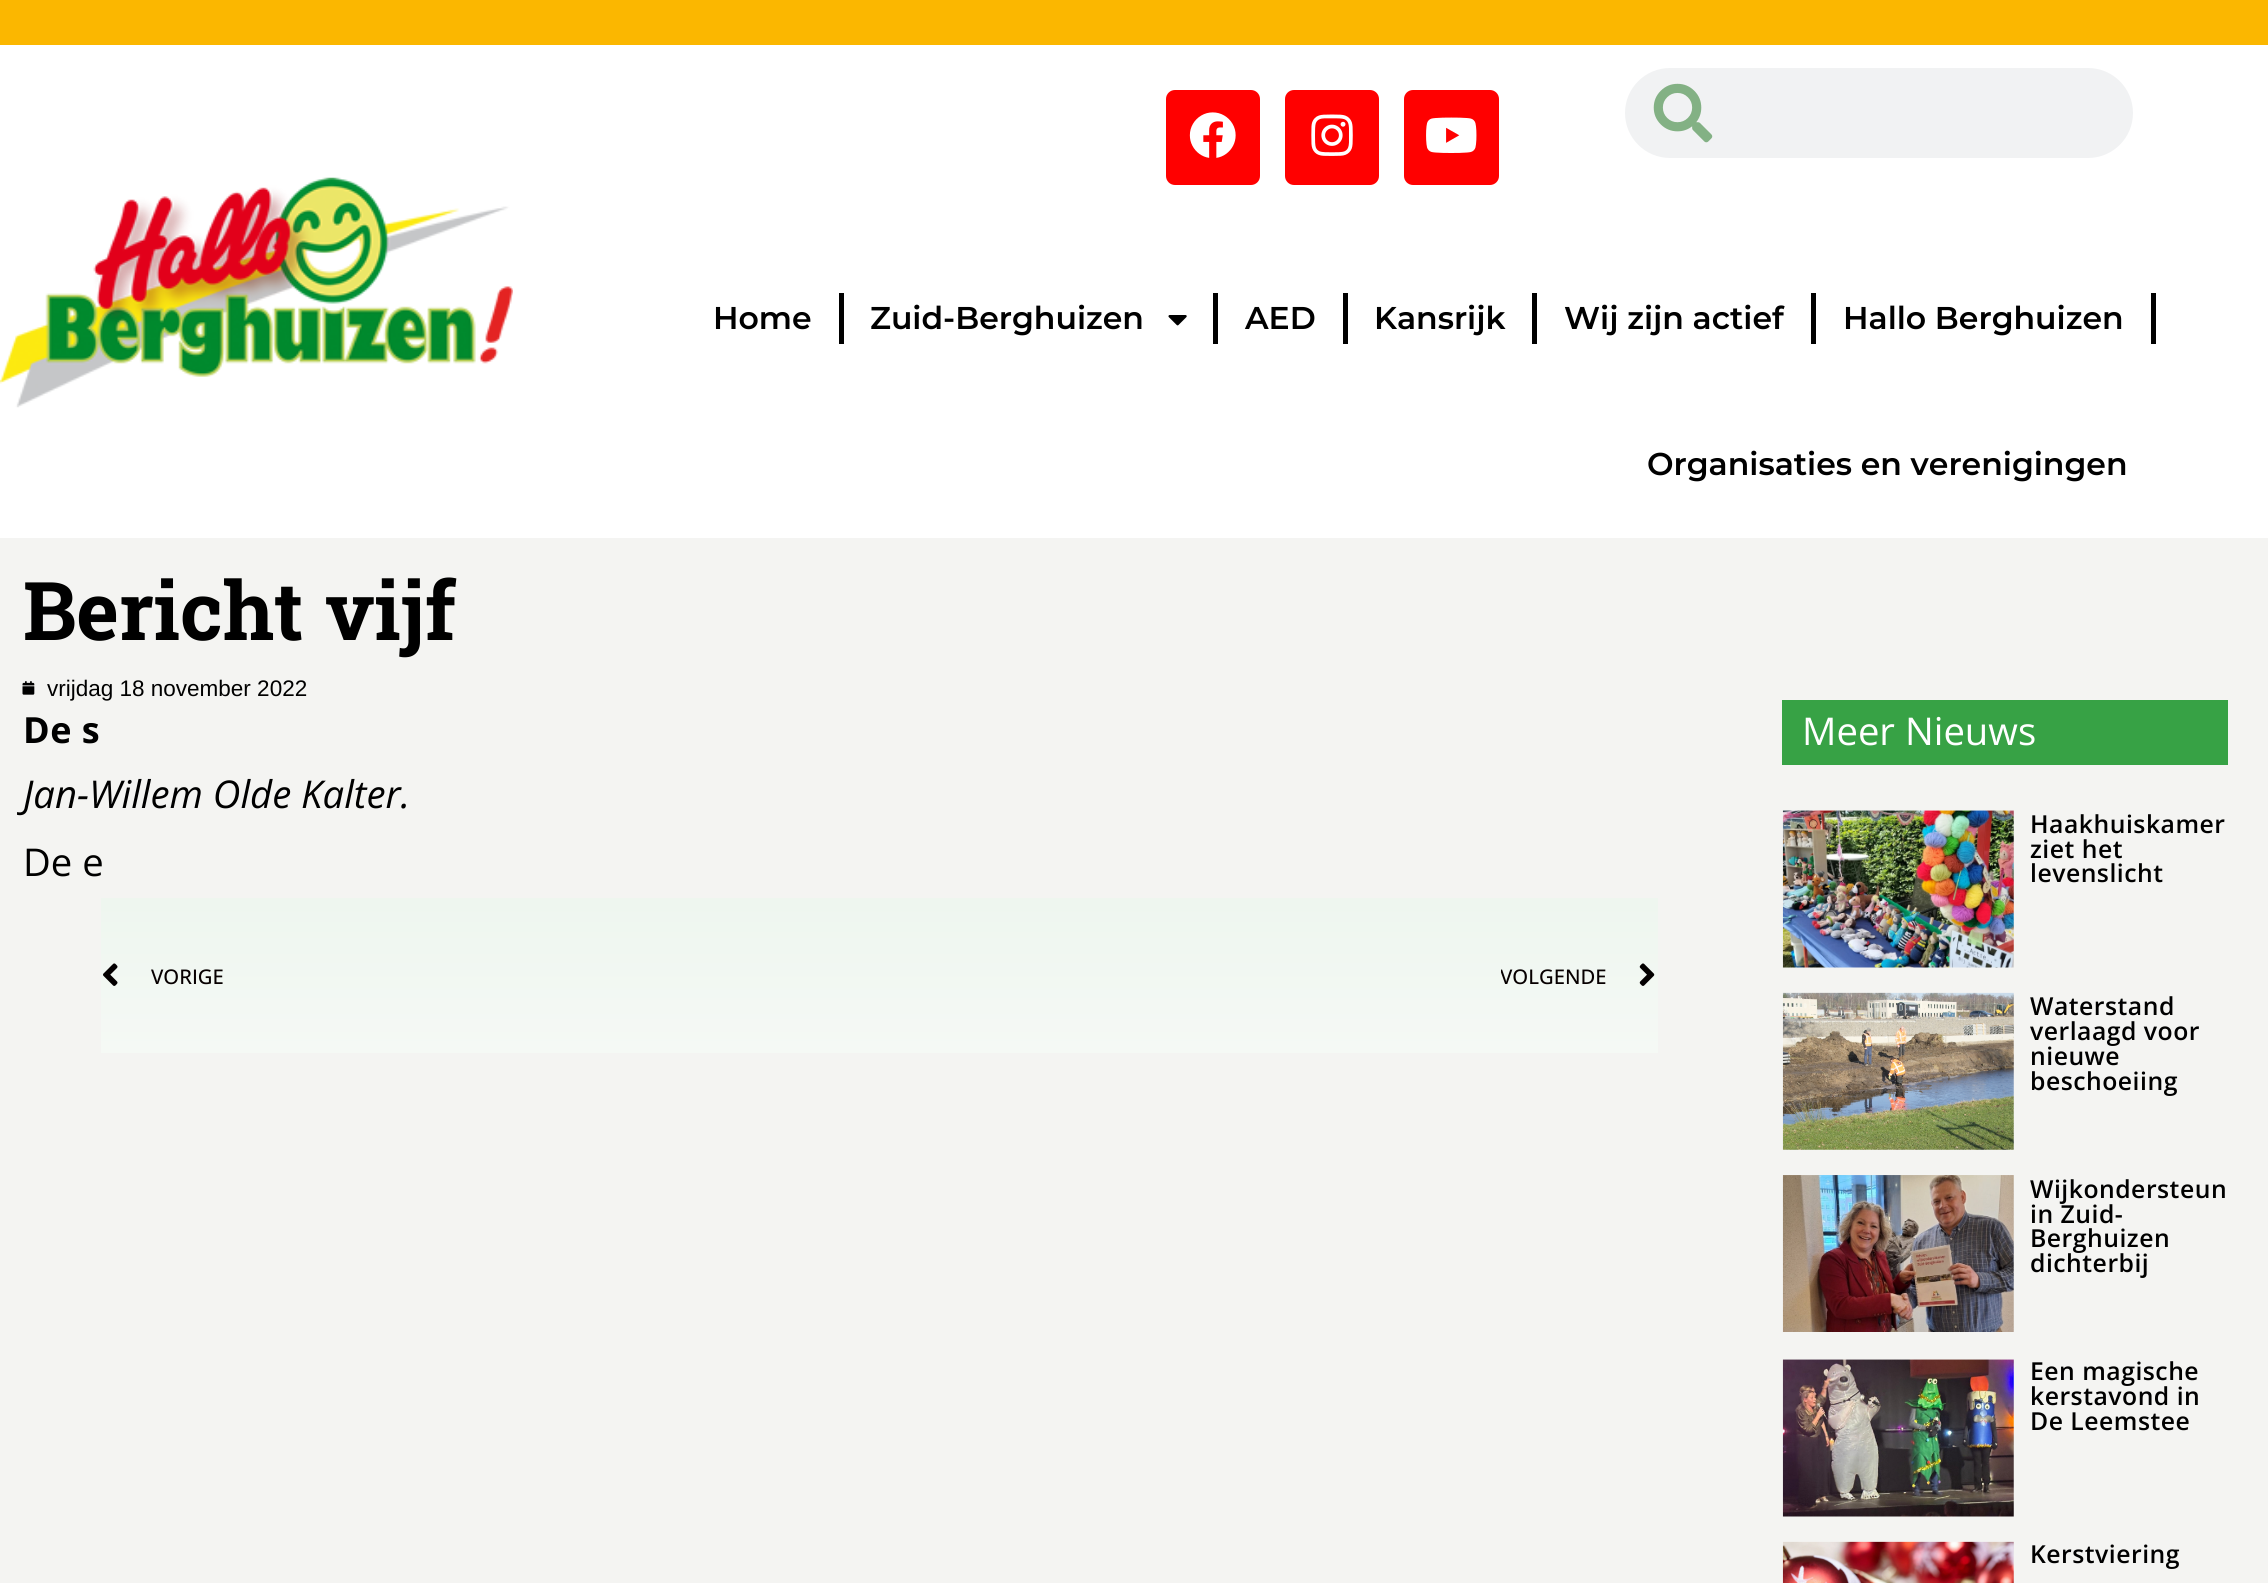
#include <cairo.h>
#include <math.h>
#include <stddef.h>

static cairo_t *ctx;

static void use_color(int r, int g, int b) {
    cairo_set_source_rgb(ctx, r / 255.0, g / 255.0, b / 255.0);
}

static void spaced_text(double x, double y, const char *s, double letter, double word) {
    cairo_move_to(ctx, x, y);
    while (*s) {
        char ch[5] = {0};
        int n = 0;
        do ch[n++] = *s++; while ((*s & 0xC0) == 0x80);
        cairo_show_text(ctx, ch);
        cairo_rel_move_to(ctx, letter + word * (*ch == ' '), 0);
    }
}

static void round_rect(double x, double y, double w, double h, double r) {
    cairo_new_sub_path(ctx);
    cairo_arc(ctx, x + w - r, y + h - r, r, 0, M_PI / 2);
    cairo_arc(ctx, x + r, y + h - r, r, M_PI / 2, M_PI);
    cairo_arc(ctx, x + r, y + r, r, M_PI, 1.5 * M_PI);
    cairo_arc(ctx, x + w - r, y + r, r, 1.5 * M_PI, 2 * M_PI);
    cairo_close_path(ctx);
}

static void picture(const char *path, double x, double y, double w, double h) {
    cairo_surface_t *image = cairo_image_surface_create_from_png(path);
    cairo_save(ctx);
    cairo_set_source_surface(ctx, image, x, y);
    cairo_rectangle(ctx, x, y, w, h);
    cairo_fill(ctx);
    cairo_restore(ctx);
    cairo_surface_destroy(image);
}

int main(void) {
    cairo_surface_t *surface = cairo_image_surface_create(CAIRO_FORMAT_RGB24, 2268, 1583);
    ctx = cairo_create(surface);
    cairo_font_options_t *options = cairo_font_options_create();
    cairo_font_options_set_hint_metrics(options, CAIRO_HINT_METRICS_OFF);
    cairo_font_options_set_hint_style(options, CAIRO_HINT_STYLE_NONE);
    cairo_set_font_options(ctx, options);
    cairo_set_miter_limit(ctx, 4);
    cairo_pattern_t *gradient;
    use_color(244, 244, 242);
    cairo_paint(ctx);
    use_color(251, 183, 0);
    cairo_rectangle(ctx, 0, 0, 2268, 45);
    cairo_fill(ctx);
    use_color(255, 255, 255);
    cairo_rectangle(ctx, 0, 45, 2268, 493);
    cairo_fill(ctx);
    picture("img1.png", 0, 177, 513, 231);
    use_color(255, 0, 0);
    round_rect(1166, 90, 94, 95, 9);
    cairo_fill(ctx);
    picture("img2.png", 1189, 112, 47, 46);
    round_rect(1285, 90, 94, 95, 9);
    cairo_fill(ctx);
    picture("img3.png", 1311, 114, 42, 42);
    round_rect(1404, 90, 95, 95, 9);
    cairo_fill(ctx);
    picture("img4.png", 1426, 117, 51, 36);
    use_color(241, 242, 243);
    round_rect(1625, 68, 508, 90, 45);
    cairo_fill(ctx);
    picture("img5.png", 1653, 83, 60, 60);
    cairo_select_font_face(ctx, "Montserrat SemiBold", CAIRO_FONT_SLANT_NORMAL, CAIRO_FONT_WEIGHT_NORMAL);
    cairo_set_font_size(ctx, 31.5);
    use_color(0, 0, 0);
    cairo_move_to(ctx, 713, 329);
    cairo_show_text(ctx, "Home");
    cairo_rectangle(ctx, 839, 293, 5, 51);
    cairo_fill(ctx);
    cairo_move_to(ctx, 870, 329);
    cairo_show_text(ctx, "Zuid-Berghuizen");
    picture("img6.png", 1168, 315, 19, 11);
    cairo_rectangle(ctx, 1213, 293, 5, 51);
    cairo_fill(ctx);
    cairo_move_to(ctx, 1245, 329);
    cairo_show_text(ctx, "AED");
    cairo_rectangle(ctx, 1343, 293, 5, 51);
    cairo_fill(ctx);
    cairo_move_to(ctx, 1374, 329);
    cairo_show_text(ctx, "Kansrijk");
    cairo_rectangle(ctx, 1532, 293, 5, 51);
    cairo_fill(ctx);
    cairo_move_to(ctx, 1564, 329);
    cairo_show_text(ctx, "Wij zijn actief");
    cairo_rectangle(ctx, 1811, 293, 5, 51);
    cairo_fill(ctx);
    cairo_move_to(ctx, 1843, 329);
    cairo_show_text(ctx, "Hallo Berghuizen");
    cairo_rectangle(ctx, 2151, 293, 5, 51);
    cairo_fill(ctx);
    cairo_move_to(ctx, 1647, 475);
    cairo_show_text(ctx, "Organisaties en verenigingen");
    cairo_select_font_face(ctx, "Roboto Slab", CAIRO_FONT_SLANT_NORMAL, CAIRO_FONT_WEIGHT_BOLD);
    cairo_set_font_size(ctx, 81);
    spaced_text(23, 640, "Bericht vijf", 0, 2);
    picture("img7.png", 22, 681, 13, 14);
    cairo_select_font_face(ctx, "Liberation Sans", CAIRO_FONT_SLANT_NORMAL, CAIRO_FONT_WEIGHT_NORMAL);
    cairo_set_font_size(ctx, 22.5);
    cairo_move_to(ctx, 47, 696);
    cairo_show_text(ctx, "vrijdag 18 november 2022");
    cairo_select_font_face(ctx, "Open Sans", CAIRO_FONT_SLANT_NORMAL, CAIRO_FONT_WEIGHT_BOLD);
    cairo_set_font_size(ctx, 36);
    spaced_text(23, 743, "De s", 0.5, 0);
    cairo_select_font_face(ctx, "Open Sans", CAIRO_FONT_SLANT_ITALIC, CAIRO_FONT_WEIGHT_NORMAL);
    cairo_set_font_size(ctx, 38.25);
    cairo_move_to(ctx, 23, 808);
    cairo_show_text(ctx, "Jan-Willem Olde Kalter.");
    cairo_select_font_face(ctx, "Open Sans", CAIRO_FONT_SLANT_NORMAL, CAIRO_FONT_WEIGHT_NORMAL);
    cairo_move_to(ctx, 23, 876);
    cairo_show_text(ctx, "De e");
    gradient = cairo_pattern_create_linear(880, 898, 880, 1053);
    cairo_pattern_add_color_stop_rgba(gradient, 0, 0.933, 0.965, 0.937, 1);
    cairo_pattern_add_color_stop_rgba(gradient, 1, 0.961, 0.976, 0.961, 1);
    cairo_set_source(ctx, gradient);
    cairo_pattern_destroy(gradient);
    cairo_rectangle(ctx, 101, 898, 1557, 155);
    cairo_fill(ctx);
    picture("img8.png", 103, 963, 15, 23);
    cairo_select_font_face(ctx, "Open Sans Medium", CAIRO_FONT_SLANT_NORMAL, CAIRO_FONT_WEIGHT_NORMAL);
    cairo_set_font_size(ctx, 20.25);
    use_color(7, 0, 0);
    cairo_move_to(ctx, 151, 984);
    cairo_show_text(ctx, "VORIGE");
    cairo_save(ctx);
    cairo_rectangle(ctx, 1501, 898, 106, 155);
    cairo_clip(ctx);
    cairo_move_to(ctx, 1500, 984);
    cairo_show_text(ctx, "VOLGENDE");
    cairo_restore(ctx);
    picture("img9.png", 1639, 963, 16, 23);
    use_color(55, 162, 69);
    cairo_rectangle(ctx, 1782, 700, 446, 65);
    cairo_fill(ctx);
    cairo_select_font_face(ctx, "Open Sans", CAIRO_FONT_SLANT_NORMAL, CAIRO_FONT_WEIGHT_NORMAL);
    cairo_set_font_size(ctx, 38.25);
    use_color(255, 255, 255);
    cairo_move_to(ctx, 1802, 745);
    cairo_show_text(ctx, "Meer Nieuws");
    picture("img10.png", 1782, 810, 232, 158);
    cairo_select_font_face(ctx, "Open Sans SemiBold", CAIRO_FONT_SLANT_NORMAL, CAIRO_FONT_WEIGHT_NORMAL);
    cairo_set_font_size(ctx, 24.75);
    use_color(0, 0, 0);
    spaced_text(2030, 833, "Haakhuiskamer", 0.5, 0);
    spaced_text(2030, 858, "ziet het", 0.5, 0);
    spaced_text(2030, 882, "levenslicht", 0.5, 0);
    picture("img11.png", 1782, 992, 232, 158);
    spaced_text(2030, 1015, "Waterstand", 0.5, 0);
    spaced_text(2030, 1040, "verlaagd voor", 0.5, 0);
    spaced_text(2030, 1065, "nieuwe", 0.5, 0);
    spaced_text(2030, 1090, "beschoeiing", 0.5, 0);
    picture("img12.png", 1782, 1175, 232, 157);
    spaced_text(2030, 1198, "Wijkondersteun", 0.5, 0);
    spaced_text(2030, 1223, "in Zuid-", 0.5, 0);
    spaced_text(2030, 1247, "Berghuizen", 0.5, 0);
    spaced_text(2030, 1272, "dichterbij", 0.5, 0);
    picture("img13.png", 1782, 1359, 232, 158);
    spaced_text(2030, 1380, "Een magische", 0.5, 0);
    spaced_text(2030, 1405, "kerstavond in", 0.5, 0);
    spaced_text(2030, 1430, "De Leemstee", 0.5, 0);
    picture("img14.png", 1782, 1541, 232, 42);
    spaced_text(2030, 1563, "Kerstviering", 0.5, 0);
    cairo_surface_write_to_png(surface, "result.png");
    cairo_font_options_destroy(options);
    cairo_destroy(ctx);
    cairo_surface_destroy(surface);
    return 0;
}
